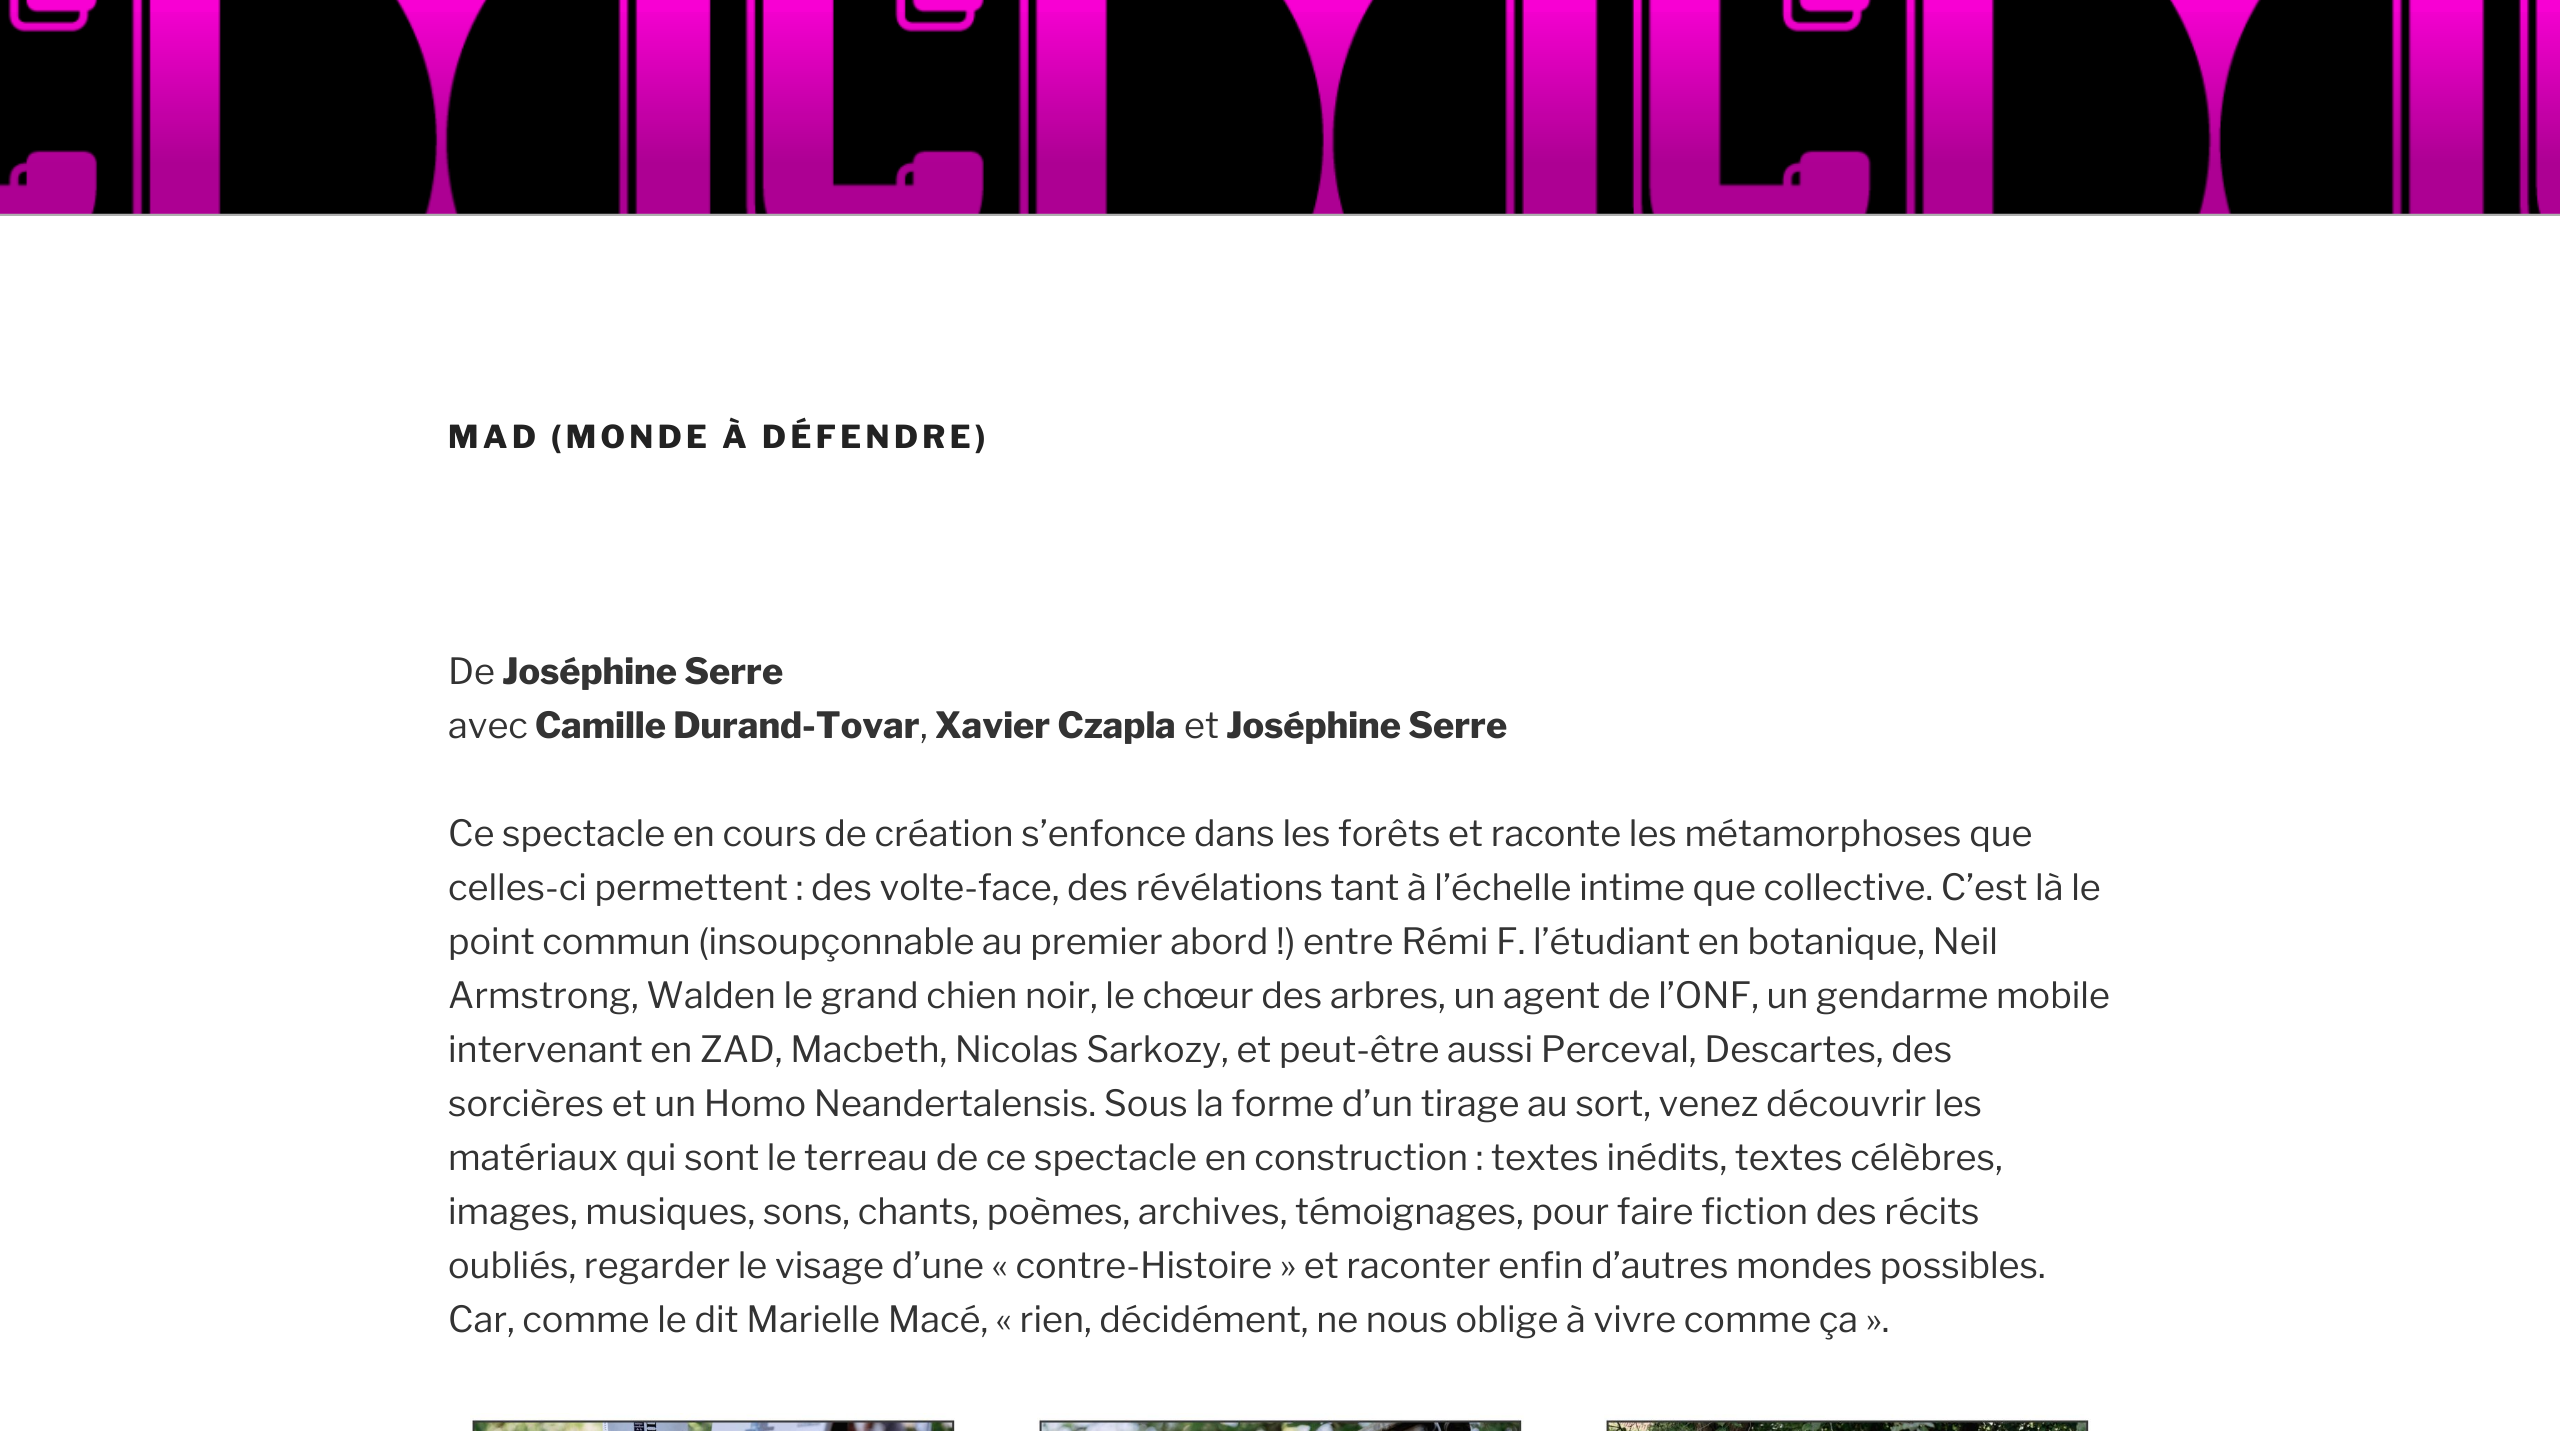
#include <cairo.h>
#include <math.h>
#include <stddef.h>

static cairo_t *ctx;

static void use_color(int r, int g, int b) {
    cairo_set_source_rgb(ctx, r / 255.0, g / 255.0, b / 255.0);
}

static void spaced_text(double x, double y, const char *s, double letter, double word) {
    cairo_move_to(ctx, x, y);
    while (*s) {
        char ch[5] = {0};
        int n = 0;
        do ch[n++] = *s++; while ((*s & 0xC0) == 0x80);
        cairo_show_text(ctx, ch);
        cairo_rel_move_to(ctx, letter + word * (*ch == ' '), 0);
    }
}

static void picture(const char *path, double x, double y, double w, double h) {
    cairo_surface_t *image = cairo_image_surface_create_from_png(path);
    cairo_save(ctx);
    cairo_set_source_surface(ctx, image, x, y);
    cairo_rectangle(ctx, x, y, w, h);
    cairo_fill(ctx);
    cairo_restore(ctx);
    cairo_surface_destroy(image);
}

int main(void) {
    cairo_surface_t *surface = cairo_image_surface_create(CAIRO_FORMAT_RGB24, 2560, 1431);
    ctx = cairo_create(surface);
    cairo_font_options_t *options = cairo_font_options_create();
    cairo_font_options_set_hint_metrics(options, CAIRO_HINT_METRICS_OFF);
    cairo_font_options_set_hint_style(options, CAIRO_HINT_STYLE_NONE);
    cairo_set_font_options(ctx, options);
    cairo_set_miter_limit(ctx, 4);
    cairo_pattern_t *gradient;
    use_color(255, 255, 255);
    cairo_paint(ctx);
    use_color(250, 250, 250);
    cairo_rectangle(ctx, 0, 213, 2560, 3);
    cairo_fill(ctx);
    picture("img1.png", 0, 0, 2560, 214);
    gradient = cairo_pattern_create_linear(1280, 0, 1280, 216);
    cairo_pattern_add_color_stop_rgba(gradient, 0, 0, 0, 0, 0);
    cairo_pattern_add_color_stop_rgba(gradient, 0.75, 0, 0, 0, 0.3);
    cairo_pattern_add_color_stop_rgba(gradient, 1, 0, 0, 0, 0.3);
    cairo_set_source(ctx, gradient);
    cairo_pattern_destroy(gradient);
    cairo_rectangle(ctx, 0, 12, 2560, 204);
    cairo_fill(ctx);
    cairo_select_font_face(ctx, "Libre Franklin ExtraBold", CAIRO_FONT_SLANT_NORMAL, CAIRO_FONT_WEIGHT_NORMAL);
    cairo_set_font_size(ctx, 31.5);
    use_color(34, 34, 34);
    spaced_text(448, 448, "MAD (MONDE À DÉFENDRE)", 4.4, 0);
    cairo_select_font_face(ctx, "Libre Franklin", CAIRO_FONT_SLANT_NORMAL, CAIRO_FONT_WEIGHT_NORMAL);
    cairo_set_font_size(ctx, 36);
    use_color(51, 51, 51);
    cairo_move_to(ctx, 448, 684);
    cairo_show_text(ctx, "De");
    cairo_select_font_face(ctx, "Libre Franklin ExtraBold", CAIRO_FONT_SLANT_NORMAL, CAIRO_FONT_WEIGHT_NORMAL);
    cairo_move_to(ctx, 502, 684);
    cairo_show_text(ctx, "Joséphine Serre");
    cairo_select_font_face(ctx, "Libre Franklin", CAIRO_FONT_SLANT_NORMAL, CAIRO_FONT_WEIGHT_NORMAL);
    cairo_move_to(ctx, 448, 738);
    cairo_show_text(ctx, "avec");
    cairo_select_font_face(ctx, "Libre Franklin ExtraBold", CAIRO_FONT_SLANT_NORMAL, CAIRO_FONT_WEIGHT_NORMAL);
    cairo_move_to(ctx, 535, 738);
    cairo_show_text(ctx, "Camille Durand-Tovar");
    cairo_select_font_face(ctx, "Libre Franklin", CAIRO_FONT_SLANT_NORMAL, CAIRO_FONT_WEIGHT_NORMAL);
    cairo_move_to(ctx, 920, 738);
    cairo_show_text(ctx, ",");
    cairo_select_font_face(ctx, "Libre Franklin ExtraBold", CAIRO_FONT_SLANT_NORMAL, CAIRO_FONT_WEIGHT_NORMAL);
    cairo_move_to(ctx, 935, 738);
    cairo_show_text(ctx, "Xavier Czapla");
    cairo_select_font_face(ctx, "Libre Franklin", CAIRO_FONT_SLANT_NORMAL, CAIRO_FONT_WEIGHT_NORMAL);
    cairo_move_to(ctx, 1184, 738);
    cairo_show_text(ctx, "et");
    cairo_select_font_face(ctx, "Libre Franklin ExtraBold", CAIRO_FONT_SLANT_NORMAL, CAIRO_FONT_WEIGHT_NORMAL);
    cairo_move_to(ctx, 1226, 738);
    cairo_show_text(ctx, "Joséphine Serre");
    cairo_select_font_face(ctx, "Libre Franklin", CAIRO_FONT_SLANT_NORMAL, CAIRO_FONT_WEIGHT_NORMAL);
    cairo_move_to(ctx, 448, 846);
    cairo_show_text(ctx, "Ce spectacle en cours de création s’enfonce dans les forêts et raconte les métamorphoses que");
    cairo_move_to(ctx, 448, 900);
    cairo_show_text(ctx, "celles-ci permettent : des volte-face, des révélations tant à l’échelle intime que collective. C’est là le");
    cairo_move_to(ctx, 448, 954);
    cairo_show_text(ctx, "point commun (insoupçonnable au premier abord !) entre Rémi F. l’étudiant en botanique, Neil");
    cairo_move_to(ctx, 448, 1008);
    cairo_show_text(ctx, "Armstrong, Walden le grand chien noir, le chœur des arbres, un agent de l’ONF, un gendarme mobile");
    cairo_move_to(ctx, 448, 1062);
    cairo_show_text(ctx, "intervenant en ZAD, Macbeth, Nicolas Sarkozy, et peut-être aussi Perceval, Descartes, des");
    cairo_move_to(ctx, 448, 1116);
    cairo_show_text(ctx, "sorcières et un Homo Neandertalensis. Sous la forme d’un tirage au sort, venez découvrir les");
    cairo_move_to(ctx, 448, 1170);
    cairo_show_text(ctx, "matériaux qui sont le terreau de ce spectacle en construction : textes inédits, textes célèbres,");
    cairo_move_to(ctx, 448, 1224);
    cairo_show_text(ctx, "images, musiques, sons, chants, poèmes, archives, témoignages, pour faire fiction des récits");
    cairo_move_to(ctx, 448, 1278);
    cairo_show_text(ctx, "oubliés, regarder le visage d’une « contre-Histoire » et raconter enfin d’autres mondes possibles.");
    cairo_move_to(ctx, 448, 1332);
    cairo_show_text(ctx, "Car, comme le dit Marielle Macé, « rien, décidément, ne nous oblige à vivre comme ça ».");
    picture("img2.png", 470, 1413, 485, 18);
    picture("img3.png", 1037, 1413, 487, 18);
    picture("img4.png", 1604, 1414, 487, 17);
    cairo_surface_write_to_png(surface, "result.png");
    cairo_font_options_destroy(options);
    cairo_destroy(ctx);
    cairo_surface_destroy(surface);
    return 0;
}
